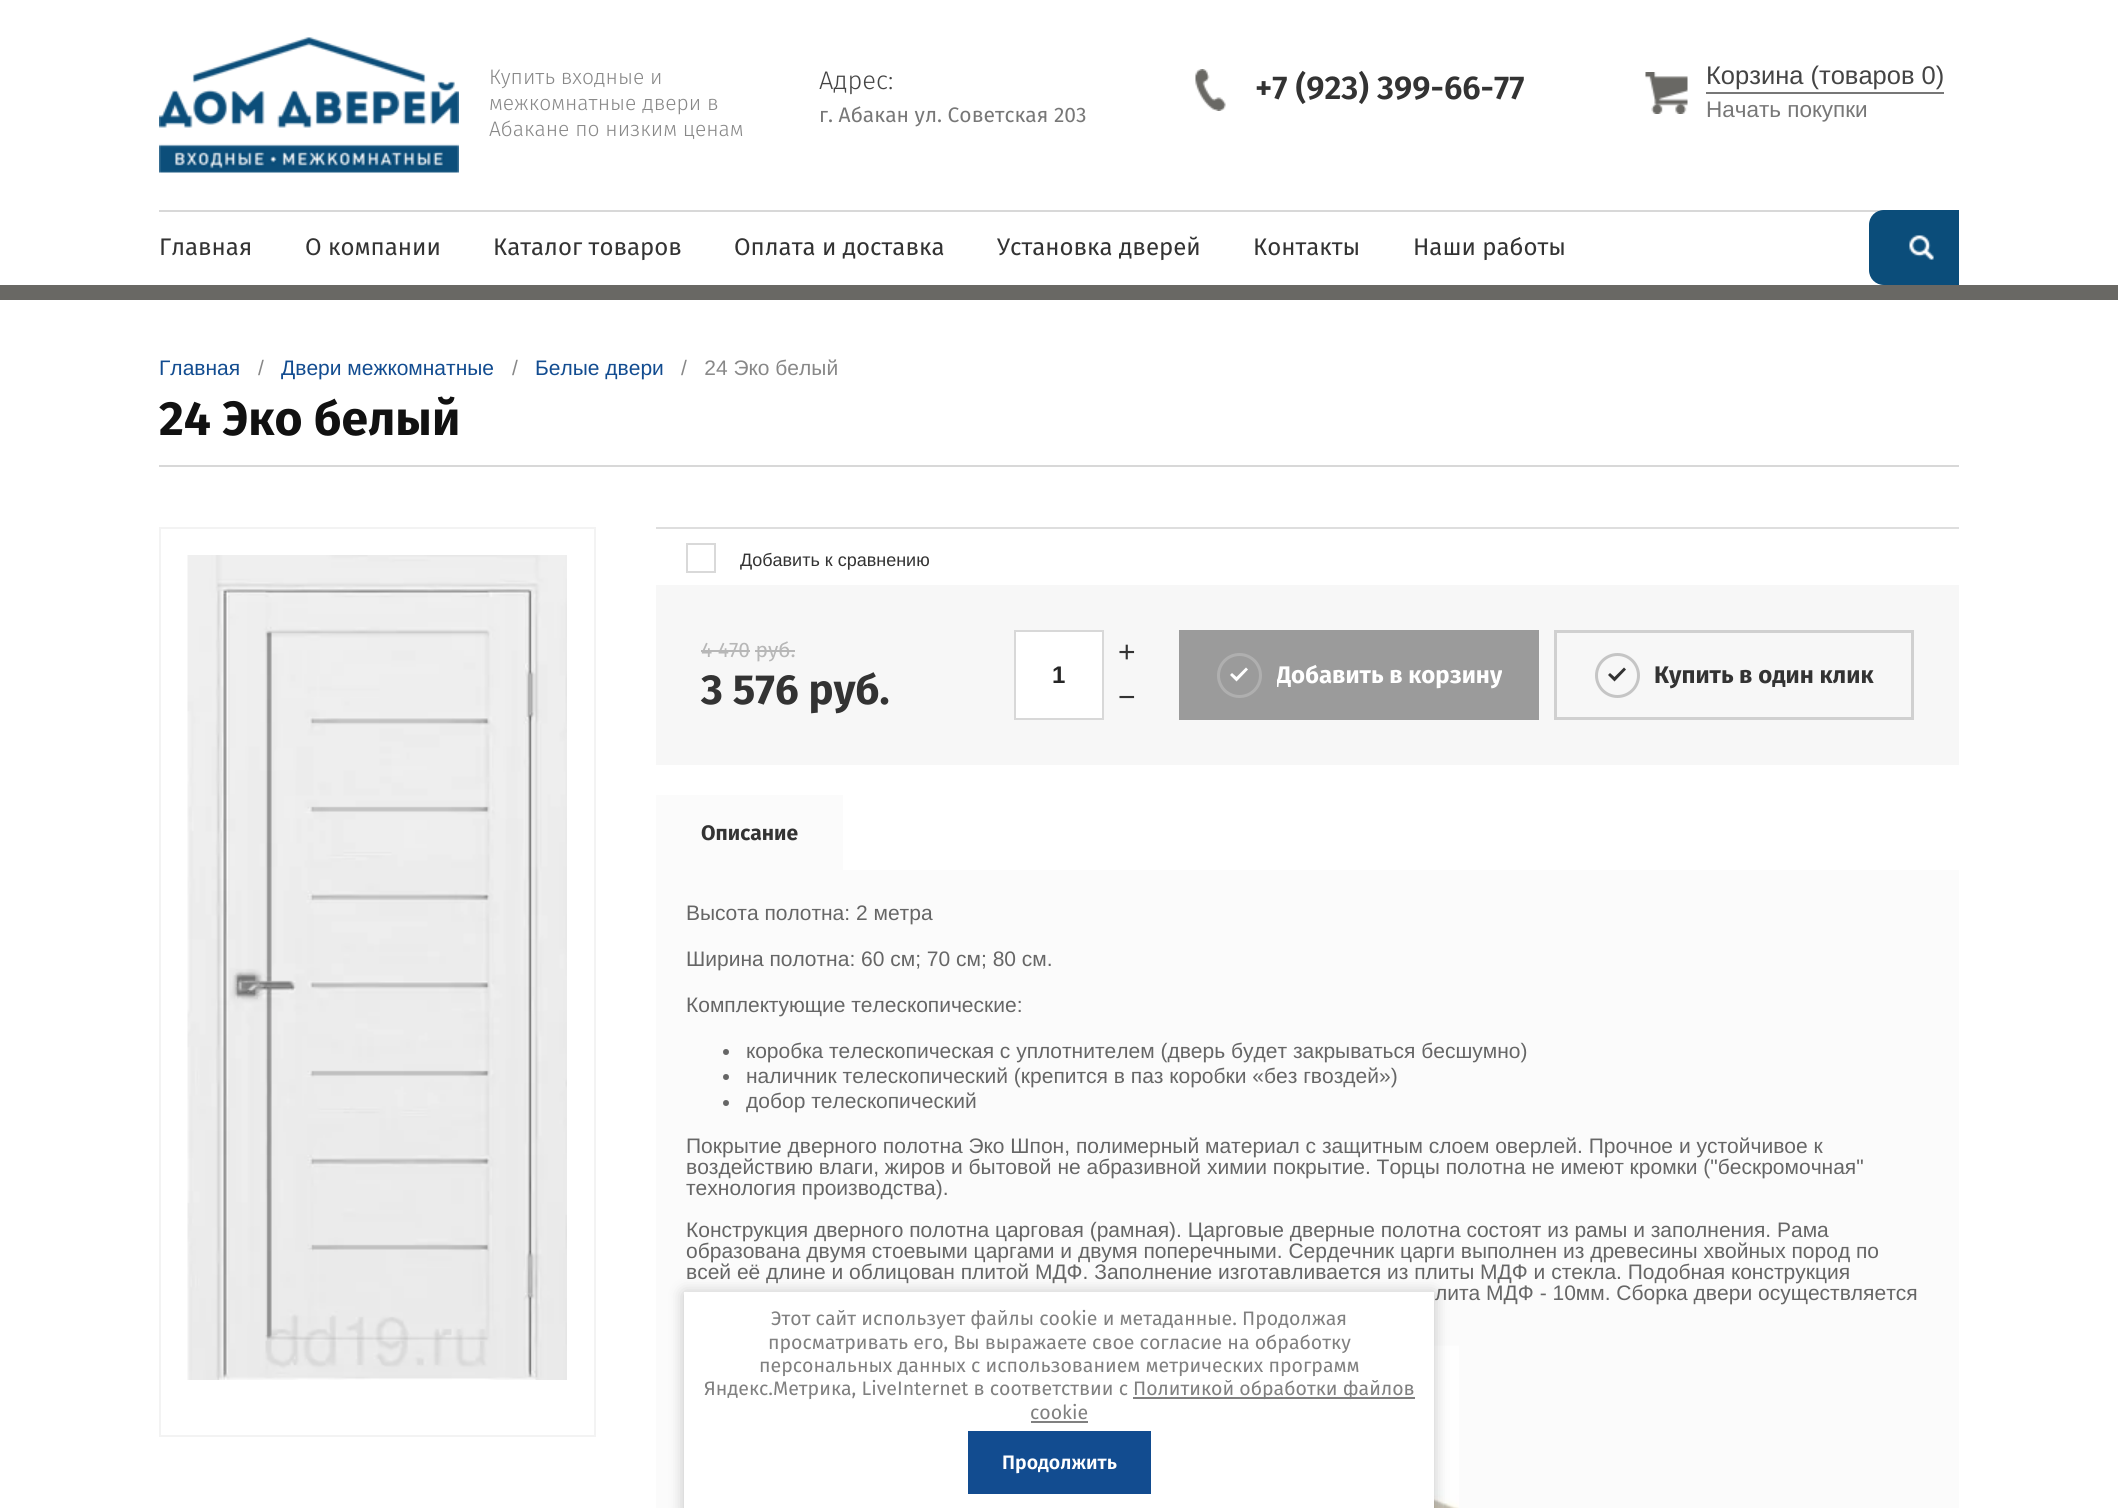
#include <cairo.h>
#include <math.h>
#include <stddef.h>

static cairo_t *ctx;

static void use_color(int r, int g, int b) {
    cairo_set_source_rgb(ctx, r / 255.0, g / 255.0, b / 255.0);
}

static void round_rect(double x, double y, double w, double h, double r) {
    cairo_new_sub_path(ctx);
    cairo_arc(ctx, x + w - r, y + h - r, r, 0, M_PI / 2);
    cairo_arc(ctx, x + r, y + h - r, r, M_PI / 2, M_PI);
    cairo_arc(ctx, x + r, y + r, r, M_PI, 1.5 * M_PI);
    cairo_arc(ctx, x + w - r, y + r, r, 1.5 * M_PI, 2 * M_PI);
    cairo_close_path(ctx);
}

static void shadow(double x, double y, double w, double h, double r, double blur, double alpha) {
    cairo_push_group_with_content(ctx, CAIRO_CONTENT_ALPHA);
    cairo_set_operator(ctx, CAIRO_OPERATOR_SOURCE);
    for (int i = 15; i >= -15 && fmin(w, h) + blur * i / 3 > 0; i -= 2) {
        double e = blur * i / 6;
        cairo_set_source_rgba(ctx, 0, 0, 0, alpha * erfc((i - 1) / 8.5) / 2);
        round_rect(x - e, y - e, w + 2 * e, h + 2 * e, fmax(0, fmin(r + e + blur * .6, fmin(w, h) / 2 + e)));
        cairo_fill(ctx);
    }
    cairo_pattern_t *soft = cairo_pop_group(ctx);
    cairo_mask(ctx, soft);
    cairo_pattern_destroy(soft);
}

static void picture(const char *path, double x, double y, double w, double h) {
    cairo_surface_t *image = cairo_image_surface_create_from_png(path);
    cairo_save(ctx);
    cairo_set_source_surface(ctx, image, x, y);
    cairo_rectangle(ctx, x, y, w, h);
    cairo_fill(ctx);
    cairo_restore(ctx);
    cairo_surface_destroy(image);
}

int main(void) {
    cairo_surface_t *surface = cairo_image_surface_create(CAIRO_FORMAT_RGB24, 2118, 1508);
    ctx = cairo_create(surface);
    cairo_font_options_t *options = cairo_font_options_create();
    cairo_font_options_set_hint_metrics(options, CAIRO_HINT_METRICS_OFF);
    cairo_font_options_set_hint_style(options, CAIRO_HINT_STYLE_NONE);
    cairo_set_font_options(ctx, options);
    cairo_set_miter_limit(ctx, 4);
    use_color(255, 255, 255);
    cairo_paint(ctx);
    use_color(105, 104, 100);
    cairo_rectangle(ctx, 0, 285, 2118, 15);
    cairo_fill(ctx);
    picture("img1.png", 159, 37, 300, 136);
    cairo_select_font_face(ctx, "Fira Sans Light", CAIRO_FONT_SLANT_NORMAL, CAIRO_FONT_WEIGHT_NORMAL);
    cairo_set_font_size(ctx, 21);
    use_color(136, 136, 136);
    cairo_move_to(ctx, 489, 84);
    cairo_show_text(ctx, "Купить входные и");
    cairo_move_to(ctx, 489, 110);
    cairo_show_text(ctx, "межкомнатные двери в");
    cairo_move_to(ctx, 489, 136);
    cairo_show_text(ctx, "Абакане по низким ценам");
    cairo_set_font_size(ctx, 25.5);
    use_color(68, 68, 68);
    cairo_move_to(ctx, 819, 89);
    cairo_show_text(ctx, "Адрес:");
    cairo_select_font_face(ctx, "Fira Sans", CAIRO_FONT_SLANT_NORMAL, CAIRO_FONT_WEIGHT_NORMAL);
    cairo_set_font_size(ctx, 21);
    use_color(119, 119, 119);
    cairo_move_to(ctx, 819, 122);
    cairo_show_text(ctx, "г. Абакан ул. Советская 203");
    picture("img2.png", 1195, 69, 31, 42);
    cairo_select_font_face(ctx, "Fira Sans SemiBold", CAIRO_FONT_SLANT_NORMAL, CAIRO_FONT_WEIGHT_NORMAL);
    cairo_set_font_size(ctx, 33);
    use_color(51, 51, 51);
    cairo_move_to(ctx, 1255, 99);
    cairo_show_text(ctx, "+7 (923) 399-66-77");
    picture("img3.png", 1645, 72, 43, 42);
    use_color(119, 119, 119);
    cairo_rectangle(ctx, 1706, 92, 238, 2);
    cairo_fill(ctx);
    cairo_select_font_face(ctx, "Liberation Sans", CAIRO_FONT_SLANT_NORMAL, CAIRO_FONT_WEIGHT_NORMAL);
    cairo_set_font_size(ctx, 25.5);
    use_color(68, 68, 68);
    cairo_move_to(ctx, 1706, 84);
    cairo_show_text(ctx, "Корзина (товаров 0)");
    cairo_set_font_size(ctx, 22.5);
    use_color(119, 119, 119);
    cairo_move_to(ctx, 1706, 117);
    cairo_show_text(ctx, "Начать покупки");
    use_color(216, 216, 216);
    cairo_rectangle(ctx, 159, 210, 1725, 2);
    cairo_fill(ctx);
    cairo_select_font_face(ctx, "Fira Sans", CAIRO_FONT_SLANT_NORMAL, CAIRO_FONT_WEIGHT_NORMAL);
    cairo_set_font_size(ctx, 24);
    use_color(51, 51, 51);
    cairo_move_to(ctx, 159, 255);
    cairo_show_text(ctx, "Главная");
    cairo_move_to(ctx, 305, 255);
    cairo_show_text(ctx, "О компании");
    cairo_move_to(ctx, 493, 255);
    cairo_show_text(ctx, "Каталог товаров");
    cairo_move_to(ctx, 734, 255);
    cairo_show_text(ctx, "Оплата и доставка");
    cairo_move_to(ctx, 997, 255);
    cairo_show_text(ctx, "Установка дверей");
    cairo_move_to(ctx, 1253, 255);
    cairo_show_text(ctx, "Контакты");
    cairo_move_to(ctx, 1413, 255);
    cairo_show_text(ctx, "Наши работы");
    use_color(11, 77, 122);
    cairo_new_path(ctx);
    cairo_move_to(ctx, 1884, 210);
    cairo_line_to(ctx, 1884, 285);
    cairo_curve_to(ctx, 1875.5, 285, 1869, 278.5, 1869, 270);
    cairo_line_to(ctx, 1869, 225);
    cairo_curve_to(ctx, 1869, 216.5, 1875.5, 210, 1884, 210);
    cairo_close_path(ctx);
    cairo_fill(ctx);
    cairo_rectangle(ctx, 1884, 210, 75, 75);
    cairo_fill(ctx);
    picture("img4.png", 1909, 235, 25, 25);
    use_color(216, 216, 216);
    cairo_rectangle(ctx, 159, 465, 1800, 2);
    cairo_fill(ctx);
    cairo_select_font_face(ctx, "Liberation Sans", CAIRO_FONT_SLANT_NORMAL, CAIRO_FONT_WEIGHT_NORMAL);
    cairo_set_font_size(ctx, 21);
    use_color(18, 76, 144);
    cairo_move_to(ctx, 159, 375);
    cairo_show_text(ctx, "Главная");
    use_color(136, 136, 136);
    cairo_move_to(ctx, 258, 375);
    cairo_show_text(ctx, "/");
    use_color(18, 76, 144);
    cairo_move_to(ctx, 281, 375);
    cairo_show_text(ctx, "Двери межкомнатные");
    use_color(136, 136, 136);
    cairo_move_to(ctx, 512, 375);
    cairo_show_text(ctx, "/");
    use_color(18, 76, 144);
    cairo_move_to(ctx, 535, 375);
    cairo_show_text(ctx, "Белые двери");
    use_color(136, 136, 136);
    cairo_move_to(ctx, 681, 375);
    cairo_show_text(ctx, "/   24 Эко белый");
    cairo_select_font_face(ctx, "Fira Sans", CAIRO_FONT_SLANT_NORMAL, CAIRO_FONT_WEIGHT_BOLD);
    cairo_set_font_size(ctx, 48);
    use_color(17, 17, 17);
    cairo_move_to(ctx, 159, 435);
    cairo_show_text(ctx, "24 Эко белый");
    cairo_rectangle(ctx, 160, 528, 435, 908);
    use_color(243, 243, 243);
    cairo_stroke(ctx);
    picture("img5.png", 187, 555, 380, 825);
    use_color(222, 222, 222);
    cairo_rectangle(ctx, 656, 527, 1303, 2);
    cairo_fill(ctx);
    cairo_rectangle(ctx, 687, 544, 28, 28);
    use_color(217, 217, 217);
    cairo_stroke(ctx);
    cairo_select_font_face(ctx, "Liberation Sans", CAIRO_FONT_SLANT_NORMAL, CAIRO_FONT_WEIGHT_NORMAL);
    cairo_set_font_size(ctx, 18);
    use_color(51, 51, 51);
    cairo_move_to(ctx, 740, 566);
    cairo_show_text(ctx, "Добавить к сравнению");
    use_color(247, 247, 247);
    cairo_rectangle(ctx, 656, 585, 1303, 180);
    cairo_fill(ctx);
    cairo_select_font_face(ctx, "Fira Sans", CAIRO_FONT_SLANT_NORMAL, CAIRO_FONT_WEIGHT_NORMAL);
    cairo_set_font_size(ctx, 21);
    use_color(183, 183, 183);
    cairo_move_to(ctx, 701, 657);
    cairo_show_text(ctx, "4 470 руб.");
    cairo_rectangle(ctx, 701, 650, 49, 2);
    cairo_fill(ctx);
    cairo_rectangle(ctx, 755, 650, 40, 2);
    cairo_fill(ctx);
    cairo_select_font_face(ctx, "Fira Sans", CAIRO_FONT_SLANT_NORMAL, CAIRO_FONT_WEIGHT_BOLD);
    cairo_set_font_size(ctx, 42);
    use_color(51, 51, 51);
    cairo_move_to(ctx, 701, 704);
    cairo_show_text(ctx, "3 576 руб.");
    cairo_select_font_face(ctx, "Liberation Sans", CAIRO_FONT_SLANT_NORMAL, CAIRO_FONT_WEIGHT_NORMAL);
    cairo_set_font_size(ctx, 30);
    cairo_move_to(ctx, 1118, 662);
    cairo_show_text(ctx, "+");
    use_color(255, 255, 255);
    cairo_rectangle(ctx, 1015, 631, 88, 88);
    cairo_fill_preserve(ctx);
    use_color(216, 216, 216);
    cairo_stroke(ctx);
    cairo_select_font_face(ctx, "Liberation Sans", CAIRO_FONT_SLANT_NORMAL, CAIRO_FONT_WEIGHT_BOLD);
    cairo_set_font_size(ctx, 24);
    use_color(38, 38, 38);
    cairo_move_to(ctx, 1052, 683);
    cairo_show_text(ctx, "1");
    cairo_select_font_face(ctx, "Liberation Sans", CAIRO_FONT_SLANT_NORMAL, CAIRO_FONT_WEIGHT_NORMAL);
    cairo_set_font_size(ctx, 30);
    use_color(51, 51, 51);
    cairo_move_to(ctx, 1118, 707);
    cairo_show_text(ctx, "−");
    use_color(155, 155, 155);
    cairo_rectangle(ctx, 1179, 630, 360, 90);
    cairo_fill(ctx);
    use_color(255, 255, 255);
    cairo_new_path(ctx);
    cairo_move_to(ctx, 1236.5, 677);
    cairo_line_to(ctx, 1232, 673);
    cairo_line_to(ctx, 1230, 675);
    cairo_line_to(ctx, 1236.5, 681.5);
    cairo_line_to(ctx, 1248, 669.5);
    cairo_line_to(ctx, 1246, 667.5);
    cairo_close_path(ctx);
    cairo_fill(ctx);
    cairo_arc(ctx, 1239.5, 675.5, 21, 0, 2 * M_PI);
    use_color(175, 175, 175);
    cairo_set_line_width(ctx, 3);
    cairo_stroke(ctx);
    cairo_save(ctx);
    cairo_rectangle(ctx, 1277, 650, 225, 51);
    cairo_clip(ctx);
    cairo_select_font_face(ctx, "Fira Sans", CAIRO_FONT_SLANT_NORMAL, CAIRO_FONT_WEIGHT_BOLD);
    cairo_set_font_size(ctx, 24);
    use_color(255, 255, 255);
    cairo_move_to(ctx, 1276, 683);
    cairo_show_text(ctx, "Добавить в корзину");
    cairo_restore(ctx);
    cairo_rectangle(ctx, 1555.5, 631.5, 357, 87);
    use_color(208, 208, 208);
    cairo_stroke(ctx);
    use_color(51, 51, 51);
    cairo_new_path(ctx);
    cairo_move_to(ctx, 1614.5, 677);
    cairo_line_to(ctx, 1610, 673);
    cairo_line_to(ctx, 1608, 675);
    cairo_line_to(ctx, 1614.5, 681.5);
    cairo_line_to(ctx, 1626, 669.5);
    cairo_line_to(ctx, 1624, 667.5);
    cairo_close_path(ctx);
    cairo_fill(ctx);
    cairo_arc(ctx, 1617.5, 675.5, 21, 0, 2 * M_PI);
    use_color(197, 197, 197);
    cairo_stroke(ctx);
    cairo_select_font_face(ctx, "Fira Sans", CAIRO_FONT_SLANT_NORMAL, CAIRO_FONT_WEIGHT_BOLD);
    cairo_set_font_size(ctx, 24);
    use_color(51, 51, 51);
    cairo_move_to(ctx, 1654, 683);
    cairo_show_text(ctx, "Купить в один клик");
    use_color(251, 251, 251);
    cairo_rectangle(ctx, 656, 795, 187, 75);
    cairo_fill(ctx);
    cairo_set_font_size(ctx, 21);
    use_color(51, 51, 51);
    cairo_move_to(ctx, 701, 840);
    cairo_show_text(ctx, "Описание");
    use_color(251, 251, 251);
    cairo_rectangle(ctx, 656, 870, 1303, 638);
    cairo_fill(ctx);
    cairo_select_font_face(ctx, "Liberation Sans", CAIRO_FONT_SLANT_NORMAL, CAIRO_FONT_WEIGHT_NORMAL);
    use_color(102, 102, 102);
    cairo_move_to(ctx, 686, 920);
    cairo_show_text(ctx, "Высота полотна: 2 метра");
    cairo_move_to(ctx, 686, 966);
    cairo_show_text(ctx, "Ширина полотна: 60 см; 70 см; 80 см.");
    cairo_move_to(ctx, 686, 1012);
    cairo_show_text(ctx, "Комплектующие телескопические:");
    cairo_new_path(ctx);
    cairo_arc(ctx, 726, 1052, 3, 0, 2 * M_PI);
    cairo_fill(ctx);
    cairo_move_to(ctx, 746, 1058);
    cairo_show_text(ctx, "коробка телескопическая с уплотнителем (дверь будет закрываться бесшумно)");
    cairo_new_path(ctx);
    cairo_arc(ctx, 726, 1077, 3, 0, 2 * M_PI);
    cairo_fill(ctx);
    cairo_move_to(ctx, 746, 1083);
    cairo_show_text(ctx, "наличник телескопический (крепится в паз коробки «без гвоздей»)");
    cairo_new_path(ctx);
    cairo_arc(ctx, 726, 1103, 3, 0, 2 * M_PI);
    cairo_fill(ctx);
    cairo_move_to(ctx, 746, 1108);
    cairo_show_text(ctx, "добор телескопический");
    cairo_move_to(ctx, 686, 1153);
    cairo_show_text(ctx, "Покрытие дверного полотна Эко Шпон, полимерный материал с защитным слоем оверлей. Прочное и устойчивое к");
    cairo_move_to(ctx, 686, 1174);
    cairo_show_text(ctx, "воздействию влаги, жиров и бытовой не абразивной химии покрытие. Торцы полотна не имеют кромки (\"бескромочная\"");
    cairo_move_to(ctx, 686, 1195);
    cairo_show_text(ctx, "технология производства).");
    cairo_move_to(ctx, 686, 1237);
    cairo_show_text(ctx, "Конструкция дверного полотна царговая (рамная). Царговые дверные полотна состоят из рамы и заполнения. Рама");
    cairo_move_to(ctx, 686, 1258);
    cairo_show_text(ctx, "образована двумя стоевыми царгами и двумя поперечными. Сердечник царги выполнен из древесины хвойных пород по");
    cairo_move_to(ctx, 686, 1279);
    cairo_show_text(ctx, "всей её длине и облицован плитой МДФ. Заполнение изготавливается из плиты МДФ и стекла. Подобная конструкция");
    cairo_move_to(ctx, 1435, 1300);
    cairo_show_text(ctx, "лита МДФ - 10мм. Сборка двери осуществляется");
    picture("img6.png", 1434, 1345, 25, 163);
    use_color(0, 0, 0);
    shadow(684, 1293, 750, 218, 0, 7.5, 0.23);
    use_color(255, 255, 255);
    cairo_rectangle(ctx, 684, 1292, 750, 216);
    cairo_fill(ctx);
    cairo_select_font_face(ctx, "Fira Sans", CAIRO_FONT_SLANT_NORMAL, CAIRO_FONT_WEIGHT_NORMAL);
    cairo_set_font_size(ctx, 19.5);
    use_color(128, 128, 128);
    cairo_move_to(ctx, 771, 1325);
    cairo_show_text(ctx, "Этот сайт использует файлы cookie и метаданные. Продолжая");
    cairo_move_to(ctx, 768, 1349);
    cairo_show_text(ctx, "просматривать его, Вы выражаете свое согласие на обработку");
    cairo_move_to(ctx, 759, 1372);
    cairo_show_text(ctx, "персональных данных с использованием метрических программ");
    cairo_move_to(ctx, 704, 1395);
    cairo_show_text(ctx, "Яндекс.Метрика, LiveInternet в соответствии с");
    cairo_rectangle(ctx, 1133, 1397, 282, 2);
    cairo_fill(ctx);
    cairo_move_to(ctx, 1133, 1395);
    cairo_show_text(ctx, "Политикой обработки файлов");
    cairo_move_to(ctx, 1030, 1419);
    cairo_show_text(ctx, "cookie");
    cairo_rectangle(ctx, 1031, 1421, 57, 2);
    cairo_fill(ctx);
    use_color(18, 76, 144);
    cairo_rectangle(ctx, 968, 1431, 183, 63);
    cairo_fill(ctx);
    cairo_select_font_face(ctx, "Fira Sans SemiBold", CAIRO_FONT_SLANT_NORMAL, CAIRO_FONT_WEIGHT_NORMAL);
    use_color(255, 255, 255);
    cairo_move_to(ctx, 1002, 1469);
    cairo_show_text(ctx, "Продолжить");
    cairo_surface_write_to_png(surface, "result.png");
    cairo_font_options_destroy(options);
    cairo_destroy(ctx);
    cairo_surface_destroy(surface);
    return 0;
}
